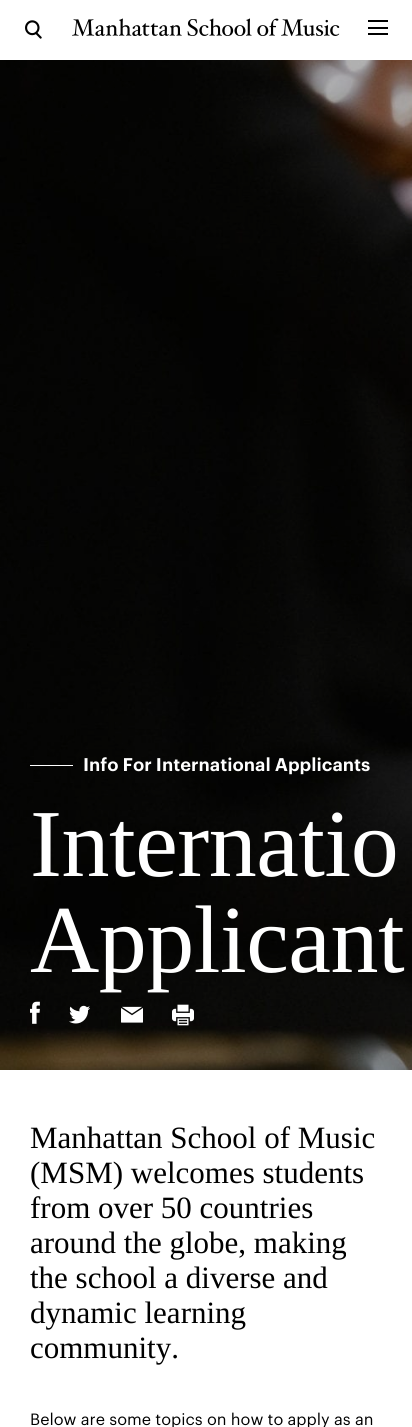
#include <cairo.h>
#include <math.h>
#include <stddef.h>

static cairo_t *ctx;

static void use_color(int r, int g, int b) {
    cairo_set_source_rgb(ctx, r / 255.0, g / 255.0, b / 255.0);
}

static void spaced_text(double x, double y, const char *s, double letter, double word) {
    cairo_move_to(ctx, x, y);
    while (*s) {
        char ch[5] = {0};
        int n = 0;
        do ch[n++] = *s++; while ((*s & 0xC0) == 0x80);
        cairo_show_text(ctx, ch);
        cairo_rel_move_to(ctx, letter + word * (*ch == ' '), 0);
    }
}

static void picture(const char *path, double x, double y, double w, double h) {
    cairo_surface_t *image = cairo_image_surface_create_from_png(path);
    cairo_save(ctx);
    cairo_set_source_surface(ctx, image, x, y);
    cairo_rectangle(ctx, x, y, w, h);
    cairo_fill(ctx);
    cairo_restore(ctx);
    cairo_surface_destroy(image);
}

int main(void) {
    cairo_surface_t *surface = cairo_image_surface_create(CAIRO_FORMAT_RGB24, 412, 1427);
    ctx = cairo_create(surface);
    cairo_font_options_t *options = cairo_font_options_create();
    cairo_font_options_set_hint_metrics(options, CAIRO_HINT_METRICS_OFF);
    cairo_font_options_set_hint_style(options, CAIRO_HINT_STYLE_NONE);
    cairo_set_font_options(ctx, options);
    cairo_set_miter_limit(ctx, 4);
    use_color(255, 255, 255);
    cairo_paint(ctx);
    picture("img1.png", 25, 20, 17, 19);
    picture("img2.png", 72, 18, 268, 18);
    use_color(0, 0, 0);
    cairo_rectangle(ctx, 368, 20, 20, 2);
    cairo_fill(ctx);
    cairo_rectangle(ctx, 368, 27, 20, 2);
    cairo_fill(ctx);
    cairo_rectangle(ctx, 368, 33, 20, 2);
    cairo_fill(ctx);
    picture("img3.png", 0, 60, 412, 1010);
    use_color(255, 255, 255);
    cairo_rectangle(ctx, 30, 765, 43, 1);
    cairo_fill(ctx);
    cairo_select_font_face(ctx, "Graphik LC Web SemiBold", CAIRO_FONT_SLANT_NORMAL, CAIRO_FONT_WEIGHT_NORMAL);
    cairo_set_font_size(ctx, 18);
    cairo_move_to(ctx, 83, 771);
    cairo_show_text(ctx, "Info For International Applicants");
    cairo_select_font_face(ctx, "Liberation Serif", CAIRO_FONT_SLANT_NORMAL, CAIRO_FONT_WEIGHT_NORMAL);
    cairo_set_font_size(ctx, 96);
    spaced_text(30, 876, "Internatio", -0.5, 0);
    spaced_text(30, 972, "Applicant", -0.5, 0);
    picture("img4.png", 30, 1001, 10, 23);
    picture("img5.png", 69, 1005, 21, 19);
    picture("img6.png", 121, 1006, 22, 17);
    picture("img7.png", 172, 1004, 22, 22);
    cairo_set_font_size(ctx, 31);
    use_color(0, 0, 0);
    cairo_move_to(ctx, 30, 1148);
    cairo_show_text(ctx, "Manhattan School of Music");
    cairo_move_to(ctx, 30, 1183);
    cairo_show_text(ctx, "(MSM) welcomes students");
    cairo_move_to(ctx, 30, 1218);
    cairo_show_text(ctx, "from over 50 countries");
    cairo_move_to(ctx, 30, 1253);
    cairo_show_text(ctx, "around the globe, making");
    cairo_move_to(ctx, 30, 1288);
    cairo_show_text(ctx, "the school a diverse and");
    cairo_move_to(ctx, 30, 1323);
    cairo_show_text(ctx, "dynamic learning");
    cairo_move_to(ctx, 30, 1358);
    cairo_show_text(ctx, "community.");
    cairo_select_font_face(ctx, "Graphik", CAIRO_FONT_SLANT_NORMAL, CAIRO_FONT_WEIGHT_NORMAL);
    cairo_set_font_size(ctx, 16);
    cairo_move_to(ctx, 30, 1425);
    cairo_show_text(ctx, "Below are some topics on how to apply as an");
    cairo_surface_write_to_png(surface, "result.png");
    cairo_font_options_destroy(options);
    cairo_destroy(ctx);
    cairo_surface_destroy(surface);
    return 0;
}
